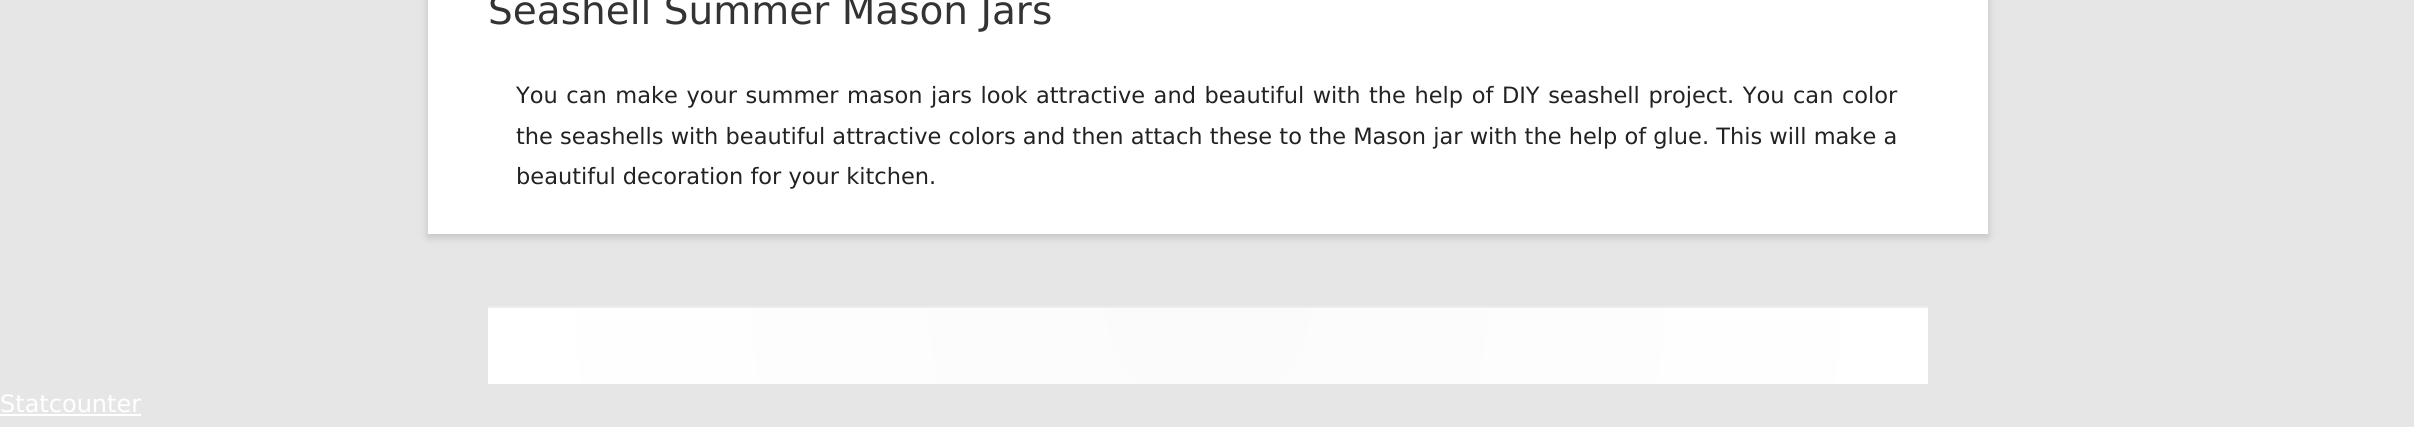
#include <cairo.h>
#include <math.h>
#include <stddef.h>

static cairo_t *ctx;

static void use_color(int r, int g, int b) {
    cairo_set_source_rgb(ctx, r / 255.0, g / 255.0, b / 255.0);
}

static void spaced_text(double x, double y, const char *s, double letter, double word) {
    cairo_move_to(ctx, x, y);
    while (*s) {
        char ch[5] = {0};
        int n = 0;
        do ch[n++] = *s++; while ((*s & 0xC0) == 0x80);
        cairo_show_text(ctx, ch);
        cairo_rel_move_to(ctx, letter + word * (*ch == ' '), 0);
    }
}

static void round_rect(double x, double y, double w, double h, double r) {
    cairo_new_sub_path(ctx);
    cairo_arc(ctx, x + w - r, y + h - r, r, 0, M_PI / 2);
    cairo_arc(ctx, x + r, y + h - r, r, M_PI / 2, M_PI);
    cairo_arc(ctx, x + r, y + r, r, M_PI, 1.5 * M_PI);
    cairo_arc(ctx, x + w - r, y + r, r, 1.5 * M_PI, 2 * M_PI);
    cairo_close_path(ctx);
}

static void shadow(double x, double y, double w, double h, double r, double blur, double alpha) {
    cairo_push_group_with_content(ctx, CAIRO_CONTENT_ALPHA);
    cairo_set_operator(ctx, CAIRO_OPERATOR_SOURCE);
    for (int i = 15; i >= -15 && fmin(w, h) + blur * i / 3 > 0; i -= 2) {
        double e = blur * i / 6;
        cairo_set_source_rgba(ctx, 0, 0, 0, alpha * erfc((i - 1) / 8.5) / 2);
        round_rect(x - e, y - e, w + 2 * e, h + 2 * e, fmax(0, fmin(r + e + blur * .6, fmin(w, h) / 2 + e)));
        cairo_fill(ctx);
    }
    cairo_pattern_t *soft = cairo_pop_group(ctx);
    cairo_mask(ctx, soft);
    cairo_pattern_destroy(soft);
}

int main(void) {
    cairo_surface_t *surface = cairo_image_surface_create(CAIRO_FORMAT_RGB24, 2414, 427);
    ctx = cairo_create(surface);
    cairo_font_options_t *options = cairo_font_options_create();
    cairo_font_options_set_hint_metrics(options, CAIRO_HINT_METRICS_OFF);
    cairo_font_options_set_hint_style(options, CAIRO_HINT_STYLE_NONE);
    cairo_set_font_options(ctx, options);
    cairo_set_miter_limit(ctx, 4);
    cairo_pattern_t *gradient;
    use_color(230, 230, 230);
    cairo_paint(ctx);
    use_color(100, 100, 100);
    shadow(428, -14, 1560, 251, 0, 4.5, 0.3);
    use_color(255, 255, 255);
    cairo_rectangle(ctx, 428, 0, 1560, 234);
    cairo_fill(ctx);
    cairo_select_font_face(ctx, "DejaVu Sans", CAIRO_FONT_SLANT_NORMAL, CAIRO_FONT_WEIGHT_NORMAL);
    cairo_set_font_size(ctx, 39);
    use_color(51, 51, 51);
    cairo_move_to(ctx, 488, 24);
    cairo_show_text(ctx, "Seashell Summer Mason Jars");
    cairo_set_font_size(ctx, 22.5);
    use_color(34, 34, 34);
    spaced_text(516, 103, "You can make your summer mason jars look attractive and beautiful with the help of DIY seashell project. You can color", 0, 1.4);
    cairo_move_to(ctx, 516, 144);
    cairo_show_text(ctx, "the seashells with beautiful attractive colors and then attach these to the Mason jar with the help of glue. This will make a");
    cairo_move_to(ctx, 516, 184);
    cairo_show_text(ctx, "beautiful decoration for your kitchen.");
    gradient = cairo_pattern_create_radial(1208, 308, 0, 1208, 308, 720);
    cairo_pattern_add_color_stop_rgba(gradient, 0, 0.984, 0.984, 0.984, 1);
    cairo_pattern_add_color_stop_rgba(gradient, 1, 1, 1, 1, 1);
    cairo_set_source(ctx, gradient);
    cairo_pattern_destroy(gradient);
    cairo_rectangle(ctx, 488, 308, 1440, 76);
    cairo_fill(ctx);
    use_color(237, 237, 237);
    cairo_rectangle(ctx, 488, 306, 1440, 2);
    cairo_fill(ctx);
    cairo_set_font_size(ctx, 24);
    use_color(255, 255, 255);
    cairo_move_to(ctx, 0, 412);
    cairo_show_text(ctx, "Statcounter");
    cairo_rectangle(ctx, 0, 414, 141, 2);
    cairo_fill(ctx);
    cairo_surface_write_to_png(surface, "result.png");
    cairo_font_options_destroy(options);
    cairo_destroy(ctx);
    cairo_surface_destroy(surface);
    return 0;
}
